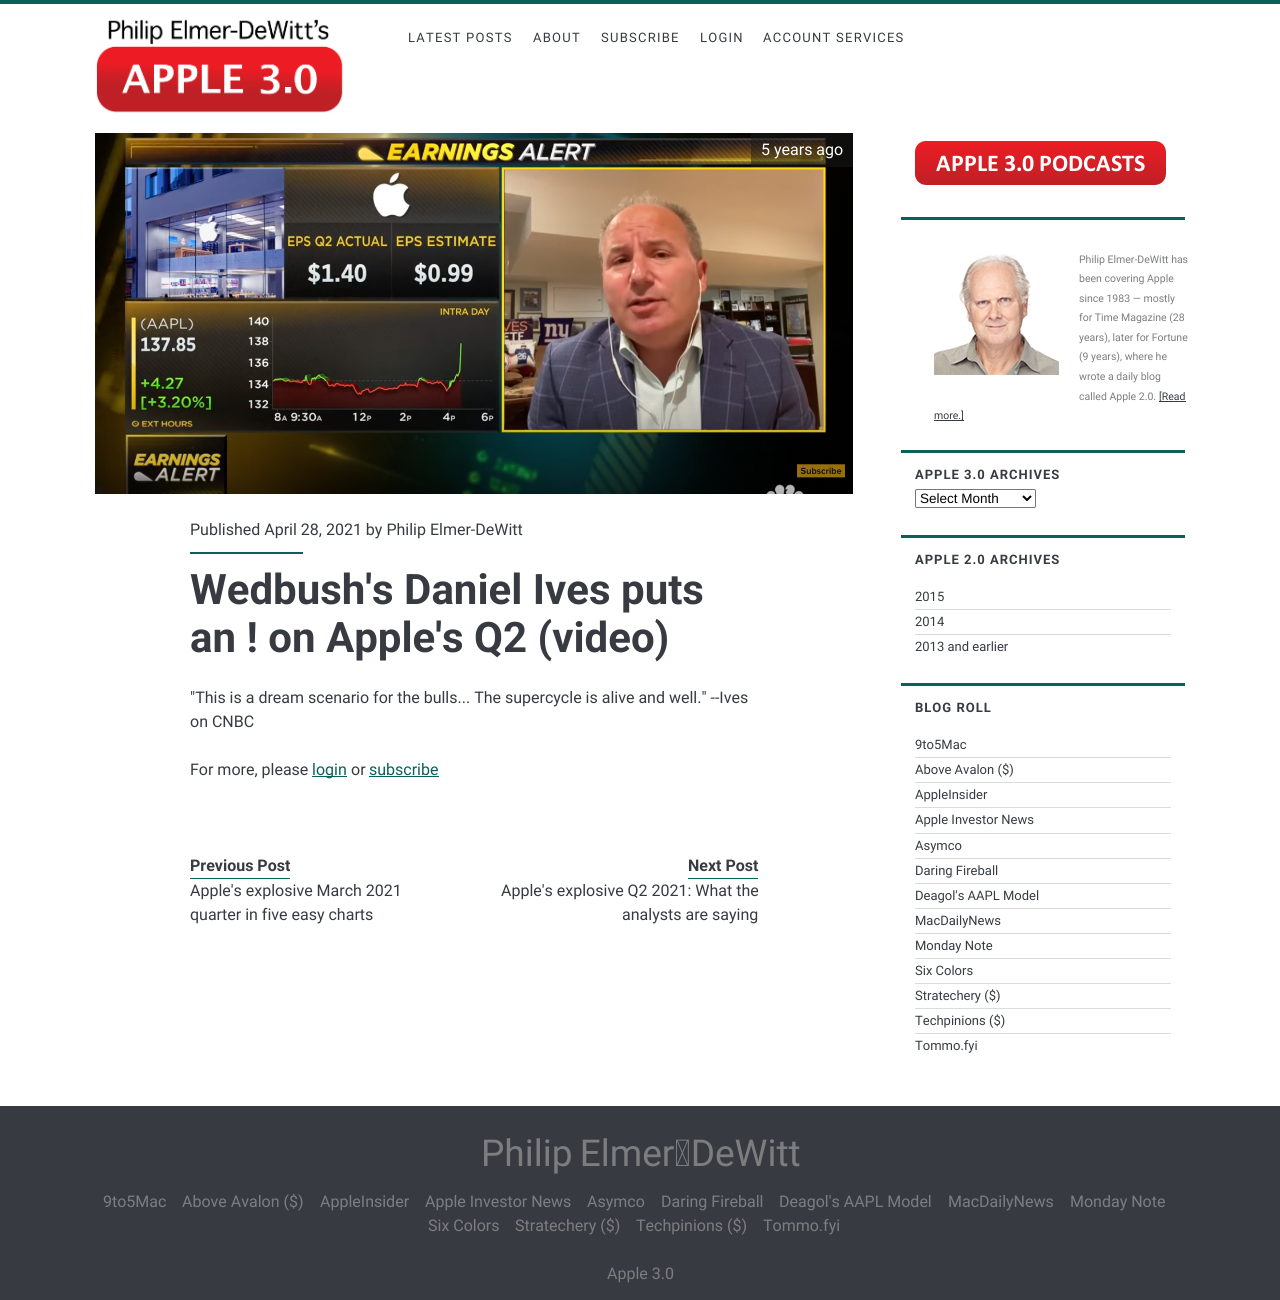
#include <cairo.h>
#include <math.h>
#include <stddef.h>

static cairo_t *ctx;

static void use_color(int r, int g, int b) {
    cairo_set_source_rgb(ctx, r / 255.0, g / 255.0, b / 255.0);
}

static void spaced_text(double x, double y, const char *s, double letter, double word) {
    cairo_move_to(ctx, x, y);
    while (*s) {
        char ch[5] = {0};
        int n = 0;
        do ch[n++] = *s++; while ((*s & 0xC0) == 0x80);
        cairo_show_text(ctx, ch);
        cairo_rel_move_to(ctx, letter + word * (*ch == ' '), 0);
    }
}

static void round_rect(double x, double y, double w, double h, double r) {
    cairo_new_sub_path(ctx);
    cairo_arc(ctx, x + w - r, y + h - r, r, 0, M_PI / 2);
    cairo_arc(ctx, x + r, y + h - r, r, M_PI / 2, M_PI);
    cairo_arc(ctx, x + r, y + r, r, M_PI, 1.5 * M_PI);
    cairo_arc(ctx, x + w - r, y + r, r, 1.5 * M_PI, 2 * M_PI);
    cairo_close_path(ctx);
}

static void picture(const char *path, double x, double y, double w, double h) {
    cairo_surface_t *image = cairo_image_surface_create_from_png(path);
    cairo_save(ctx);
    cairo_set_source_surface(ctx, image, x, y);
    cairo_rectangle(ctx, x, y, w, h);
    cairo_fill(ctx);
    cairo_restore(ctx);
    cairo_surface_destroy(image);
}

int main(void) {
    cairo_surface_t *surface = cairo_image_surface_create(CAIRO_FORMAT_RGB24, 1280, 1300);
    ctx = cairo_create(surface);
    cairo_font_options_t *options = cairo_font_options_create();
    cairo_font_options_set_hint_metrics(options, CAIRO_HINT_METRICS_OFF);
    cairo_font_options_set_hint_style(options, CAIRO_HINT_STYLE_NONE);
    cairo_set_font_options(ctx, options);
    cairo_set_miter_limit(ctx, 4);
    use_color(255, 255, 255);
    cairo_paint(ctx);
    use_color(8, 97, 90);
    cairo_rectangle(ctx, 0, 0, 1280, 4);
    cairo_fill(ctx);
    picture("img1.png", 96, 19, 247, 94);
    cairo_select_font_face(ctx, "Roboto", CAIRO_FONT_SLANT_NORMAL, CAIRO_FONT_WEIGHT_NORMAL);
    cairo_set_font_size(ctx, 13);
    use_color(55, 59, 65);
    spaced_text(408, 42, "LATEST POSTS", 1.25, 0);
    spaced_text(533, 42, "ABOUT", 1.25, 0);
    spaced_text(601, 42, "SUBSCRIBE", 1.25, 0);
    spaced_text(700, 42, "LOGIN", 1.25, 0);
    spaced_text(763, 42, "ACCOUNT SERVICES", 1.25, 0);
    picture("img2.png", 95, 133, 758, 361);
    cairo_set_source_rgba(ctx, 0.102, 0.102, 0.102, 0.5);
    cairo_rectangle(ctx, 751, 133, 102, 34);
    cairo_fill(ctx);
    cairo_set_font_size(ctx, 16);
    use_color(255, 255, 255);
    cairo_move_to(ctx, 761, 155);
    cairo_show_text(ctx, "5 years ago");
    cairo_set_source_rgba(ctx, 0.102, 0.102, 0.102, 0.5);
    cairo_rectangle(ctx, 95, 486, 8, 8);
    cairo_fill(ctx);
    use_color(55, 59, 65);
    cairo_move_to(ctx, 190, 535);
    cairo_show_text(ctx, "Published April 28, 2021 by Philip Elmer-DeWitt");
    use_color(8, 97, 90);
    cairo_rectangle(ctx, 190, 552, 113, 2);
    cairo_fill(ctx);
    cairo_select_font_face(ctx, "Roboto", CAIRO_FONT_SLANT_NORMAL, CAIRO_FONT_WEIGHT_BOLD);
    cairo_set_font_size(ctx, 42);
    use_color(55, 59, 65);
    cairo_move_to(ctx, 190, 604);
    cairo_show_text(ctx, "Wedbush's Daniel Ives puts");
    cairo_move_to(ctx, 190, 652);
    cairo_show_text(ctx, "an ! on Apple's Q2 (video)");
    cairo_select_font_face(ctx, "Roboto", CAIRO_FONT_SLANT_NORMAL, CAIRO_FONT_WEIGHT_NORMAL);
    cairo_set_font_size(ctx, 16);
    cairo_move_to(ctx, 190, 703);
    cairo_show_text(ctx, "\"This is a dream scenario for the bulls... The supercycle is alive and well.\" --Ives");
    cairo_move_to(ctx, 190, 727);
    cairo_show_text(ctx, "on CNBC");
    cairo_move_to(ctx, 190, 775);
    cairo_show_text(ctx, "For more, please");
    use_color(8, 97, 90);
    cairo_rectangle(ctx, 312, 776, 35, 1);
    cairo_fill(ctx);
    cairo_move_to(ctx, 312, 775);
    cairo_show_text(ctx, "login");
    use_color(55, 59, 65);
    cairo_move_to(ctx, 351, 775);
    cairo_show_text(ctx, "or");
    use_color(8, 97, 90);
    cairo_move_to(ctx, 369, 775);
    cairo_show_text(ctx, "subscribe");
    cairo_rectangle(ctx, 369, 776, 70, 1);
    cairo_fill(ctx);
    cairo_rectangle(ctx, 190, 878, 100, 1);
    cairo_fill(ctx);
    cairo_select_font_face(ctx, "Roboto", CAIRO_FONT_SLANT_NORMAL, CAIRO_FONT_WEIGHT_BOLD);
    use_color(55, 59, 65);
    cairo_move_to(ctx, 190, 871);
    cairo_show_text(ctx, "Previous Post");
    cairo_select_font_face(ctx, "Roboto", CAIRO_FONT_SLANT_NORMAL, CAIRO_FONT_WEIGHT_NORMAL);
    cairo_move_to(ctx, 190, 896);
    cairo_show_text(ctx, "Apple's explosive March 2021");
    cairo_move_to(ctx, 190, 920);
    cairo_show_text(ctx, "quarter in five easy charts");
    use_color(8, 97, 90);
    cairo_rectangle(ctx, 688, 878, 70, 1);
    cairo_fill(ctx);
    cairo_select_font_face(ctx, "Roboto", CAIRO_FONT_SLANT_NORMAL, CAIRO_FONT_WEIGHT_BOLD);
    use_color(55, 59, 65);
    cairo_move_to(ctx, 688, 871);
    cairo_show_text(ctx, "Next Post");
    cairo_select_font_face(ctx, "Roboto", CAIRO_FONT_SLANT_NORMAL, CAIRO_FONT_WEIGHT_NORMAL);
    cairo_move_to(ctx, 501, 896);
    cairo_show_text(ctx, "Apple's explosive Q2 2021: What the");
    cairo_move_to(ctx, 622, 920);
    cairo_show_text(ctx, "analysts are saying");
    picture("img3.png", 915, 141, 251, 44);
    use_color(8, 97, 90);
    cairo_rectangle(ctx, 901, 217, 284, 3);
    cairo_fill(ctx);
    picture("img4.png", 934, 254, 125, 121);
    cairo_set_font_size(ctx, 10.5);
    use_color(124, 125, 127);
    cairo_move_to(ctx, 1079, 263);
    cairo_show_text(ctx, "Philip Elmer-DeWitt has");
    cairo_move_to(ctx, 1079, 282);
    cairo_show_text(ctx, "been covering Apple");
    cairo_move_to(ctx, 1079, 302);
    cairo_show_text(ctx, "since 1983 — mostly");
    cairo_move_to(ctx, 1079, 321);
    cairo_show_text(ctx, "for Time Magazine (28");
    cairo_move_to(ctx, 1079, 341);
    cairo_show_text(ctx, "years), later for Fortune");
    cairo_move_to(ctx, 1079, 360);
    cairo_show_text(ctx, "(9 years), where he");
    cairo_move_to(ctx, 1079, 380);
    cairo_show_text(ctx, "wrote a daily blog");
    cairo_move_to(ctx, 1079, 400);
    cairo_show_text(ctx, "called Apple 2.0.");
    use_color(55, 59, 65);
    cairo_rectangle(ctx, 1159, 401, 27, 1);
    cairo_fill(ctx);
    cairo_move_to(ctx, 1159, 400);
    cairo_show_text(ctx, "[Read");
    cairo_rectangle(ctx, 934, 420, 30, 1);
    cairo_fill(ctx);
    cairo_move_to(ctx, 934, 419);
    cairo_show_text(ctx, "more.]");
    use_color(8, 97, 90);
    cairo_rectangle(ctx, 901, 450, 284, 3);
    cairo_fill(ctx);
    cairo_select_font_face(ctx, "Roboto", CAIRO_FONT_SLANT_NORMAL, CAIRO_FONT_WEIGHT_BOLD);
    cairo_set_font_size(ctx, 13);
    use_color(55, 59, 65);
    spaced_text(915, 479, "APPLE 3.0 ARCHIVES", 1, 0);
    round_rect(915.5, 489.5, 120, 18, 1.5);
    use_color(118, 118, 118);
    cairo_set_line_width(ctx, 1);
    cairo_stroke(ctx);
    cairo_new_path(ctx);
    cairo_move_to(ctx, 1023, 496);
    cairo_line_to(ctx, 1027, 500);
    cairo_line_to(ctx, 1031, 496);
    use_color(0, 0, 0);
    cairo_set_line_width(ctx, 2);
    cairo_stroke(ctx);
    cairo_select_font_face(ctx, "Liberation Sans", CAIRO_FONT_SLANT_NORMAL, CAIRO_FONT_WEIGHT_NORMAL);
    cairo_set_font_size(ctx, 13.5);
    cairo_move_to(ctx, 920, 503);
    cairo_show_text(ctx, "Select Month");
    use_color(8, 97, 90);
    cairo_rectangle(ctx, 901, 535, 284, 3);
    cairo_fill(ctx);
    cairo_select_font_face(ctx, "Roboto", CAIRO_FONT_SLANT_NORMAL, CAIRO_FONT_WEIGHT_BOLD);
    cairo_set_font_size(ctx, 13);
    use_color(55, 59, 65);
    spaced_text(915, 564, "APPLE 2.0 ARCHIVES", 1, 0);
    use_color(217, 220, 223);
    cairo_rectangle(ctx, 915, 609, 256, 1);
    cairo_fill(ctx);
    cairo_select_font_face(ctx, "Roboto", CAIRO_FONT_SLANT_NORMAL, CAIRO_FONT_WEIGHT_NORMAL);
    use_color(55, 59, 65);
    cairo_move_to(ctx, 915, 601);
    cairo_show_text(ctx, "2015");
    use_color(217, 220, 223);
    cairo_rectangle(ctx, 915, 634, 256, 1);
    cairo_fill(ctx);
    use_color(55, 59, 65);
    cairo_move_to(ctx, 915, 626);
    cairo_show_text(ctx, "2014");
    cairo_move_to(ctx, 915, 651);
    cairo_show_text(ctx, "2013 and earlier");
    use_color(8, 97, 90);
    cairo_rectangle(ctx, 901, 683, 284, 3);
    cairo_fill(ctx);
    cairo_select_font_face(ctx, "Roboto", CAIRO_FONT_SLANT_NORMAL, CAIRO_FONT_WEIGHT_BOLD);
    use_color(55, 59, 65);
    spaced_text(915, 712, "BLOG ROLL", 1, 0);
    use_color(217, 220, 223);
    cairo_rectangle(ctx, 915, 757, 256, 1);
    cairo_fill(ctx);
    cairo_select_font_face(ctx, "Roboto", CAIRO_FONT_SLANT_NORMAL, CAIRO_FONT_WEIGHT_NORMAL);
    use_color(55, 59, 65);
    cairo_move_to(ctx, 915, 749);
    cairo_show_text(ctx, "9to5Mac");
    use_color(217, 220, 223);
    cairo_rectangle(ctx, 915, 782, 256, 1);
    cairo_fill(ctx);
    use_color(55, 59, 65);
    cairo_move_to(ctx, 915, 774);
    cairo_show_text(ctx, "Above Avalon ($)");
    use_color(217, 220, 223);
    cairo_rectangle(ctx, 915, 807, 256, 1);
    cairo_fill(ctx);
    use_color(55, 59, 65);
    cairo_move_to(ctx, 915, 799);
    cairo_show_text(ctx, "AppleInsider");
    use_color(217, 220, 223);
    cairo_rectangle(ctx, 915, 833, 256, 1);
    cairo_fill(ctx);
    use_color(55, 59, 65);
    cairo_move_to(ctx, 915, 824);
    cairo_show_text(ctx, "Apple Investor News");
    use_color(217, 220, 223);
    cairo_rectangle(ctx, 915, 858, 256, 1);
    cairo_fill(ctx);
    use_color(55, 59, 65);
    cairo_move_to(ctx, 915, 850);
    cairo_show_text(ctx, "Asymco");
    use_color(217, 220, 223);
    cairo_rectangle(ctx, 915, 883, 256, 1);
    cairo_fill(ctx);
    use_color(55, 59, 65);
    cairo_move_to(ctx, 915, 875);
    cairo_show_text(ctx, "Daring Fireball");
    use_color(217, 220, 223);
    cairo_rectangle(ctx, 915, 908, 256, 1);
    cairo_fill(ctx);
    use_color(55, 59, 65);
    cairo_move_to(ctx, 915, 900);
    cairo_show_text(ctx, "Deagol's AAPL Model");
    use_color(217, 220, 223);
    cairo_rectangle(ctx, 915, 933, 256, 1);
    cairo_fill(ctx);
    use_color(55, 59, 65);
    cairo_move_to(ctx, 915, 925);
    cairo_show_text(ctx, "MacDailyNews");
    use_color(217, 220, 223);
    cairo_rectangle(ctx, 915, 958, 256, 1);
    cairo_fill(ctx);
    use_color(55, 59, 65);
    cairo_move_to(ctx, 915, 950);
    cairo_show_text(ctx, "Monday Note");
    use_color(217, 220, 223);
    cairo_rectangle(ctx, 915, 983, 256, 1);
    cairo_fill(ctx);
    use_color(55, 59, 65);
    cairo_move_to(ctx, 915, 975);
    cairo_show_text(ctx, "Six Colors");
    use_color(217, 220, 223);
    cairo_rectangle(ctx, 915, 1008, 256, 1);
    cairo_fill(ctx);
    use_color(55, 59, 65);
    cairo_move_to(ctx, 915, 1000);
    cairo_show_text(ctx, "Stratechery ($)");
    use_color(217, 220, 223);
    cairo_rectangle(ctx, 915, 1033, 256, 1);
    cairo_fill(ctx);
    use_color(55, 59, 65);
    cairo_move_to(ctx, 915, 1025);
    cairo_show_text(ctx, "Techpinions ($)");
    cairo_move_to(ctx, 915, 1050);
    cairo_show_text(ctx, "Tommo.fyi");
    cairo_rectangle(ctx, 0, 1106, 1280, 194);
    cairo_fill(ctx);
    cairo_set_font_size(ctx, 37);
    use_color(124, 125, 127);
    spaced_text(481, 1166, "Philip Elmer‑DeWitt", 0, -2);
    cairo_set_font_size(ctx, 16);
    cairo_move_to(ctx, 103, 1207);
    cairo_show_text(ctx, "9to5Mac");
    cairo_move_to(ctx, 182, 1207);
    cairo_show_text(ctx, "Above Avalon ($)");
    cairo_move_to(ctx, 320, 1207);
    cairo_show_text(ctx, "AppleInsider");
    cairo_move_to(ctx, 425, 1207);
    cairo_show_text(ctx, "Apple Investor News");
    cairo_move_to(ctx, 587, 1207);
    cairo_show_text(ctx, "Asymco");
    cairo_move_to(ctx, 661, 1207);
    cairo_show_text(ctx, "Daring Fireball");
    cairo_move_to(ctx, 779, 1207);
    cairo_show_text(ctx, "Deagol's AAPL Model");
    cairo_move_to(ctx, 948, 1207);
    cairo_show_text(ctx, "MacDailyNews");
    cairo_move_to(ctx, 1070, 1207);
    cairo_show_text(ctx, "Monday Note");
    cairo_move_to(ctx, 428, 1231);
    cairo_show_text(ctx, "Six Colors");
    cairo_move_to(ctx, 515, 1231);
    cairo_show_text(ctx, "Stratechery ($)");
    cairo_move_to(ctx, 636, 1231);
    cairo_show_text(ctx, "Techpinions ($)");
    cairo_move_to(ctx, 763, 1231);
    cairo_show_text(ctx, "Tommo.fyi");
    cairo_move_to(ctx, 607, 1279);
    cairo_show_text(ctx, "Apple 3.0");
    cairo_surface_write_to_png(surface, "result.png");
    cairo_font_options_destroy(options);
    cairo_destroy(ctx);
    cairo_surface_destroy(surface);
    return 0;
}
